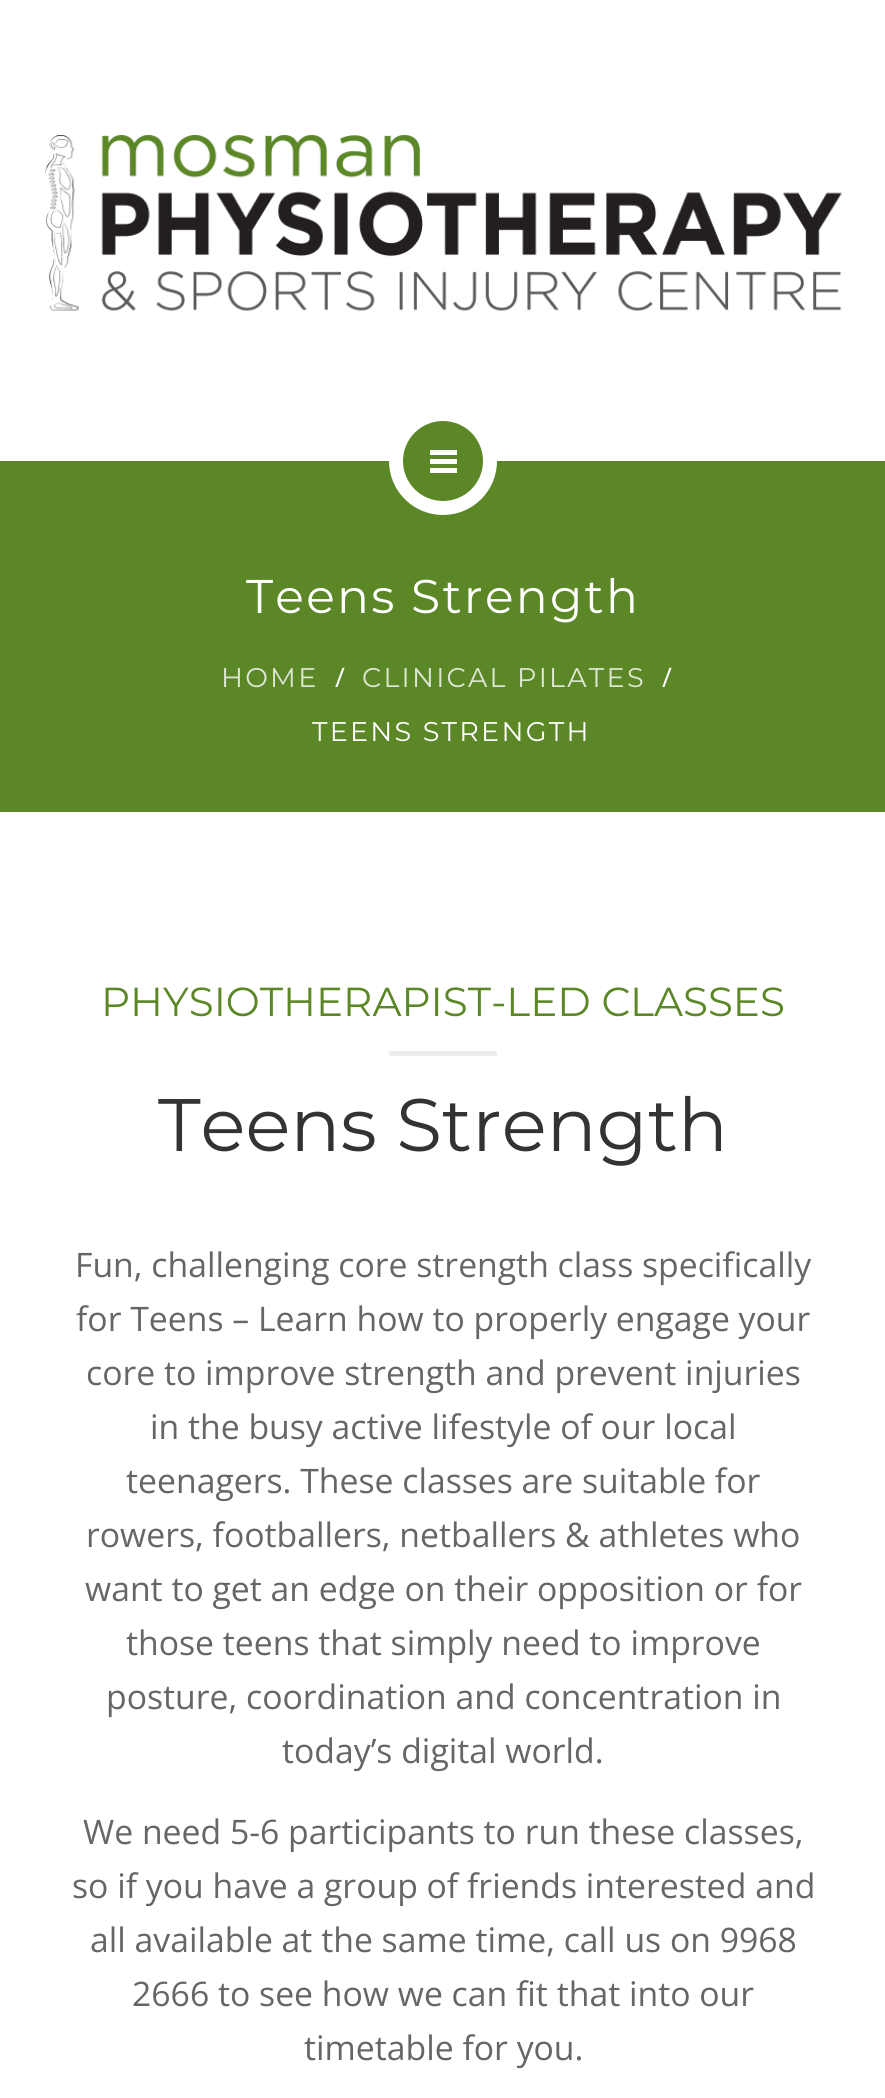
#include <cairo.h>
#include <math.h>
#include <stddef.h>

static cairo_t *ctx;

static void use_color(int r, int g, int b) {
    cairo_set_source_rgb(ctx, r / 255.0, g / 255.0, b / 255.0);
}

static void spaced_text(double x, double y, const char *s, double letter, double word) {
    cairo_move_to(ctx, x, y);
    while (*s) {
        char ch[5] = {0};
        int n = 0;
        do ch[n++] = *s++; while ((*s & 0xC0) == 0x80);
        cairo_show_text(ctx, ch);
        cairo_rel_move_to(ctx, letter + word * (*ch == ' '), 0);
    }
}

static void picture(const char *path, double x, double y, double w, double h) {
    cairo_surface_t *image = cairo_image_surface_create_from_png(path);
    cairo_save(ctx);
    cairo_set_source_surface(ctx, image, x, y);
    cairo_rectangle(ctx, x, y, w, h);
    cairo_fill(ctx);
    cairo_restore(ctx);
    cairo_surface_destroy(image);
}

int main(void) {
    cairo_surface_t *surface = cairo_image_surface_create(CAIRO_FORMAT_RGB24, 885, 2098);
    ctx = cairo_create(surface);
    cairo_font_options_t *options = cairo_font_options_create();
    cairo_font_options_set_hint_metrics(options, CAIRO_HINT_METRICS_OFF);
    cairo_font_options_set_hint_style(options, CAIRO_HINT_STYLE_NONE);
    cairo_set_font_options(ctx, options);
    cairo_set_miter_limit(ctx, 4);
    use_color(255, 255, 255);
    cairo_paint(ctx);
    picture("img1.png", 45, 135, 797, 176);
    use_color(92, 135, 39);
    cairo_rectangle(ctx, 0, 461, 885, 351);
    cairo_fill(ctx);
    cairo_arc(ctx, 443, 461, 47, 0, 2 * M_PI);
    cairo_fill_preserve(ctx);
    use_color(255, 255, 255);
    cairo_set_line_width(ctx, 14);
    cairo_stroke(ctx);
    cairo_rectangle(ctx, 430, 450, 27, 5);
    cairo_fill(ctx);
    cairo_rectangle(ctx, 430, 459, 27, 5);
    cairo_fill(ctx);
    cairo_rectangle(ctx, 430, 468, 27, 5);
    cairo_fill(ctx);
    cairo_select_font_face(ctx, "Montserrat Thin", CAIRO_FONT_SLANT_NORMAL, CAIRO_FONT_WEIGHT_NORMAL);
    cairo_set_font_size(ctx, 47.25);
    spaced_text(246, 613, "Teens Strength", 2.25, 0);
    cairo_set_font_size(ctx, 27);
    use_color(222, 231, 212);
    spaced_text(221, 687, "HOME", 2.25, 0);
    cairo_select_font_face(ctx, "Open Sans", CAIRO_FONT_SLANT_NORMAL, CAIRO_FONT_WEIGHT_NORMAL);
    use_color(255, 255, 255);
    spaced_text(335, 687, "/", 2.25, 0);
    cairo_select_font_face(ctx, "Montserrat Thin", CAIRO_FONT_SLANT_NORMAL, CAIRO_FONT_WEIGHT_NORMAL);
    use_color(222, 231, 212);
    spaced_text(362, 687, "CLINICAL PILATES", 2.25, 0);
    cairo_select_font_face(ctx, "Open Sans", CAIRO_FONT_SLANT_NORMAL, CAIRO_FONT_WEIGHT_NORMAL);
    use_color(255, 255, 255);
    spaced_text(662, 687, "/", 2.25, 0);
    cairo_select_font_face(ctx, "Montserrat Thin", CAIRO_FONT_SLANT_NORMAL, CAIRO_FONT_WEIGHT_NORMAL);
    spaced_text(312, 741, "TEENS STRENGTH", 2.25, 0);
    cairo_set_font_size(ctx, 40.5);
    use_color(92, 135, 39);
    cairo_move_to(ctx, 101, 1016);
    cairo_show_text(ctx, "PHYSIOTHERAPIST-LED CLASSES");
    use_color(237, 237, 237);
    cairo_rectangle(ctx, 389, 1051, 108, 5);
    cairo_fill(ctx);
    cairo_set_font_size(ctx, 74.25);
    use_color(51, 51, 51);
    cairo_move_to(ctx, 158, 1151);
    cairo_show_text(ctx, "Teens Strength");
    cairo_select_font_face(ctx, "Open Sans", CAIRO_FONT_SLANT_NORMAL, CAIRO_FONT_WEIGHT_NORMAL);
    cairo_set_font_size(ctx, 33.75);
    use_color(102, 102, 102);
    cairo_move_to(ctx, 75, 1277);
    cairo_show_text(ctx, "Fun, challenging core strength class specifically");
    cairo_move_to(ctx, 76, 1331);
    cairo_show_text(ctx, "for Teens – Learn how to properly engage your");
    cairo_move_to(ctx, 86, 1385);
    cairo_show_text(ctx, "core to improve strength and prevent injuries");
    cairo_move_to(ctx, 150, 1439);
    cairo_show_text(ctx, "in the busy active lifestyle of our local");
    cairo_move_to(ctx, 126, 1493);
    cairo_show_text(ctx, "teenagers. These classes are suitable for");
    cairo_move_to(ctx, 86, 1547);
    cairo_show_text(ctx, "rowers, footballers, netballers & athletes who");
    cairo_move_to(ctx, 85, 1601);
    cairo_show_text(ctx, "want to get an edge on their opposition or for");
    cairo_move_to(ctx, 126, 1655);
    cairo_show_text(ctx, "those teens that simply need to improve");
    cairo_move_to(ctx, 106, 1709);
    cairo_show_text(ctx, "posture, coordination and concentration in");
    cairo_move_to(ctx, 282, 1763);
    cairo_show_text(ctx, "today’s digital world.");
    cairo_move_to(ctx, 83, 1844);
    cairo_show_text(ctx, "We need 5-6 participants to run these classes,");
    cairo_move_to(ctx, 72, 1898);
    cairo_show_text(ctx, "so if you have a group of friends interested and");
    cairo_move_to(ctx, 90, 1952);
    cairo_show_text(ctx, "all available at the same time, call us on 9968");
    cairo_move_to(ctx, 132, 2006);
    cairo_show_text(ctx, "2666 to see how we can fit that into our");
    cairo_move_to(ctx, 304, 2060);
    cairo_show_text(ctx, "timetable for you.");
    cairo_surface_write_to_png(surface, "result.png");
    cairo_font_options_destroy(options);
    cairo_destroy(ctx);
    cairo_surface_destroy(surface);
    return 0;
}
